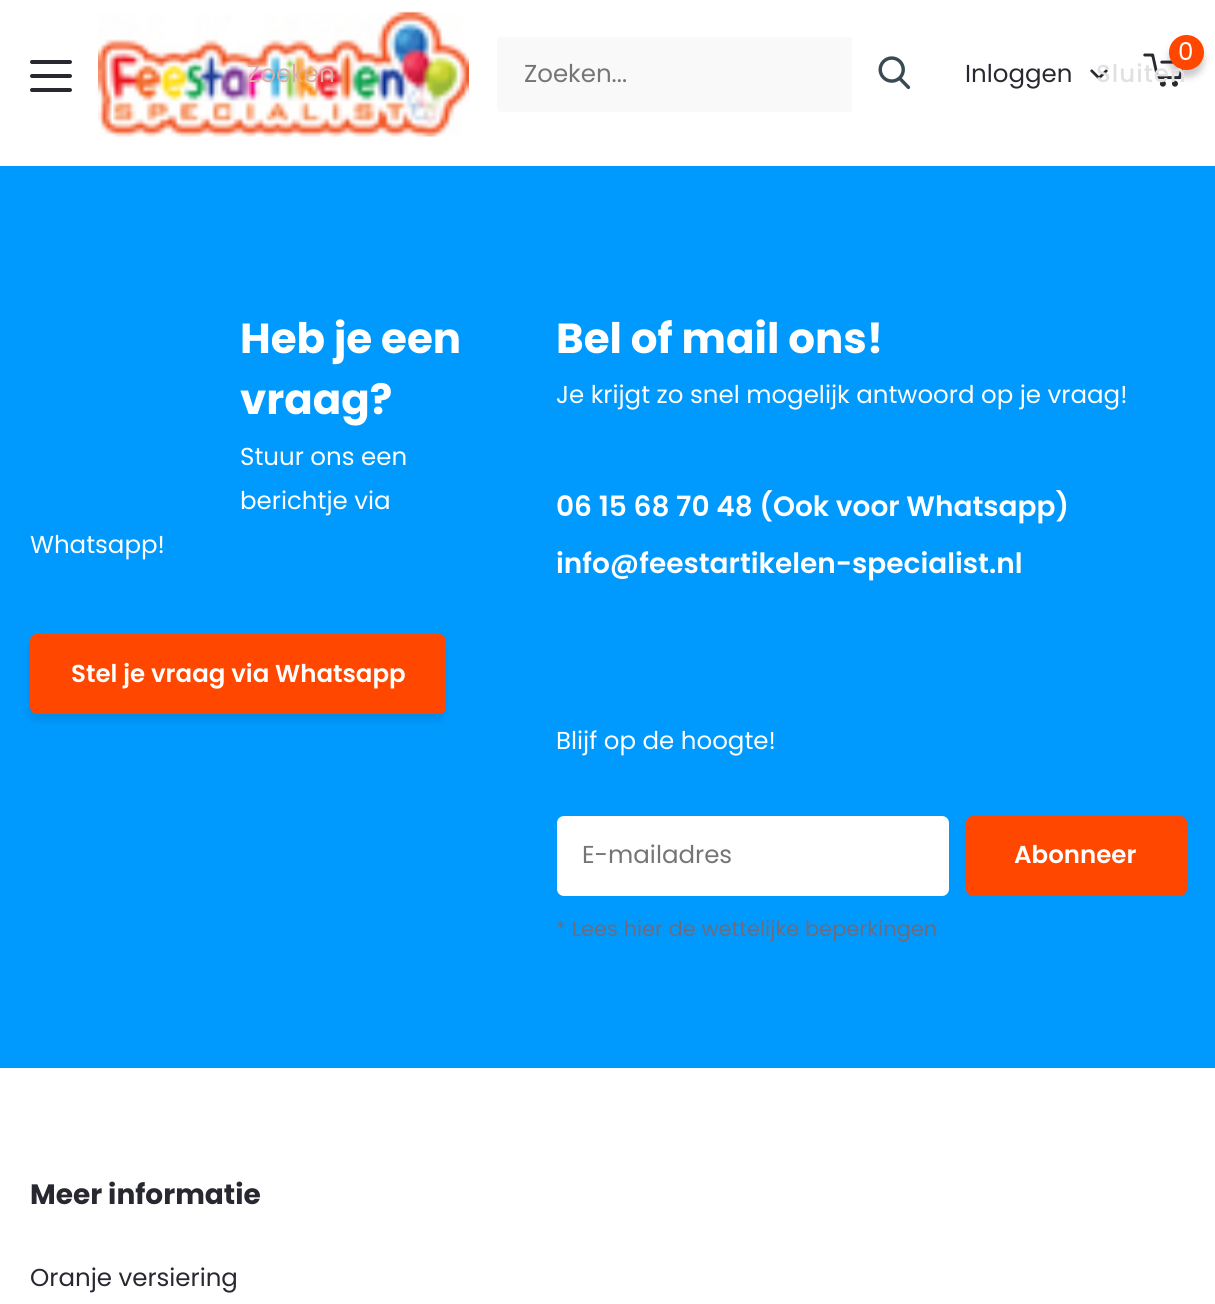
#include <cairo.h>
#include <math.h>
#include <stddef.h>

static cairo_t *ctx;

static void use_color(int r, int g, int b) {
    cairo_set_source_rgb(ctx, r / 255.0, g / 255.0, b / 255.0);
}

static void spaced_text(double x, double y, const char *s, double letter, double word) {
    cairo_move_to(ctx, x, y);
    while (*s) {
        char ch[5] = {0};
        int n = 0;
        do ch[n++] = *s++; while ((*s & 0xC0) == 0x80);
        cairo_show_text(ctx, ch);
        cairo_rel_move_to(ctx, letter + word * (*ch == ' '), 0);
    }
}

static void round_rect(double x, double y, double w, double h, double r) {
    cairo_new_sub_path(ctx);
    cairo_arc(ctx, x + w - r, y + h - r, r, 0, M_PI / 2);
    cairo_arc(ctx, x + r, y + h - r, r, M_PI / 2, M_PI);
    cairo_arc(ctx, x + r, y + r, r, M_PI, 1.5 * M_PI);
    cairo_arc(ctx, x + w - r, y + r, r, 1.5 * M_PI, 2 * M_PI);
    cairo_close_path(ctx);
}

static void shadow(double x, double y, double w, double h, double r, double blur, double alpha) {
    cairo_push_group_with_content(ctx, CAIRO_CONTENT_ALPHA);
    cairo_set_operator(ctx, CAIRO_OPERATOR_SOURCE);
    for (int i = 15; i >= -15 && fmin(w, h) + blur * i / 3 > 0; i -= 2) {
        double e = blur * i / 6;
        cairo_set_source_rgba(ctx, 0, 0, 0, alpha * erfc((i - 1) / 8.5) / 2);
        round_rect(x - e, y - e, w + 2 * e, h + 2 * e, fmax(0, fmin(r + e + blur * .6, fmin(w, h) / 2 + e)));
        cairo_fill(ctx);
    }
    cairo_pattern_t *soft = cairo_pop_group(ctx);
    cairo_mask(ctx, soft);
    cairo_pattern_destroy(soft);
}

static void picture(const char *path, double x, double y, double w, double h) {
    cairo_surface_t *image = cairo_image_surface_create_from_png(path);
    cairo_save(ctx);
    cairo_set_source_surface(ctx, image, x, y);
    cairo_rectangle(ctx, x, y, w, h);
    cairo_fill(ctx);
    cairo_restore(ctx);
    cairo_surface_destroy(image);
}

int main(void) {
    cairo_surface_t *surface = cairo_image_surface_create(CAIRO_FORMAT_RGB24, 1215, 1304);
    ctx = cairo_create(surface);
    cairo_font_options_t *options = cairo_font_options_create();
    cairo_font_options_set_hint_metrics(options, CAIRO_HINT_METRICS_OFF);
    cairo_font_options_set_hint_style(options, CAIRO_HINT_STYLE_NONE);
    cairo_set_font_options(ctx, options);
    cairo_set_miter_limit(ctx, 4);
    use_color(255, 255, 255);
    cairo_paint(ctx);
    use_color(40, 40, 48);
    round_rect(30, 60, 42, 4, 2);
    cairo_fill(ctx);
    round_rect(30, 74, 42, 4, 2);
    cairo_fill(ctx);
    round_rect(30, 88, 42, 4, 2);
    cairo_fill(ctx);
    picture("img1.png", 98, 11, 371, 126);
    picture("img2.png", 1143, 53, 41, 34);
    use_color(40, 40, 48);
    shadow(1169, 42, 35, 35, 17.5, 3.5, 0.25);
    use_color(255, 71, 0);
    cairo_arc(ctx, 1186.5, 52.5, 17.5, 0, 2 * M_PI);
    cairo_fill(ctx);
    cairo_select_font_face(ctx, "Poppins", CAIRO_FONT_SLANT_NORMAL, CAIRO_FONT_WEIGHT_NORMAL);
    cairo_set_font_size(ctx, 24.5);
    use_color(255, 255, 255);
    cairo_move_to(ctx, 1178, 60);
    cairo_show_text(ctx, "0");
    use_color(249, 249, 249);
    cairo_new_path(ctx);
    cairo_move_to(ctx, 502, 35);
    cairo_line_to(ctx, 852, 35);
    cairo_line_to(ctx, 852, 114);
    cairo_line_to(ctx, 502, 114);
    cairo_curve_to(ctx, 498, 114, 495, 111, 495, 107);
    cairo_line_to(ctx, 495, 42);
    cairo_curve_to(ctx, 495, 38, 498, 35, 502, 35);
    cairo_close_path(ctx);
    cairo_fill(ctx);
    use_color(255, 255, 255);
    cairo_set_fill_rule(ctx, CAIRO_FILL_RULE_EVEN_ODD);
    cairo_new_path(ctx);
    cairo_move_to(ctx, 502, 35);
    cairo_line_to(ctx, 852, 35);
    cairo_line_to(ctx, 852, 114);
    cairo_line_to(ctx, 502, 114);
    cairo_curve_to(ctx, 498, 114, 495, 111, 495, 107);
    cairo_line_to(ctx, 495, 42);
    cairo_curve_to(ctx, 495, 38, 498, 35, 502, 35);
    cairo_close_path(ctx);
    cairo_move_to(ctx, 502, 37);
    cairo_line_to(ctx, 852, 37);
    cairo_line_to(ctx, 852, 112);
    cairo_line_to(ctx, 502, 112);
    cairo_curve_to(ctx, 499, 112, 497, 110, 497, 107);
    cairo_line_to(ctx, 497, 42);
    cairo_curve_to(ctx, 497, 39, 499, 37, 502, 37);
    cairo_close_path(ctx);
    cairo_fill(ctx);
    use_color(117, 117, 117);
    cairo_move_to(ctx, 524, 82);
    cairo_show_text(ctx, "Zoeken...");
    picture("img3.png", 878, 56, 33, 34);
    use_color(40, 40, 48);
    cairo_move_to(ctx, 965, 82);
    cairo_show_text(ctx, "Inloggen");
    picture("img4.png", 1090, 69, 18, 11);
    use_color(217, 174, 165);
    cairo_move_to(ctx, 247, 82);
    cairo_show_text(ctx, "Zoeken");
    cairo_select_font_face(ctx, "Poppins Medium", CAIRO_FONT_SLANT_NORMAL, CAIRO_FONT_WEIGHT_NORMAL);
    use_color(225, 225, 226);
    spaced_text(1096, 82, "Sluiten", 1, 0);
    use_color(0, 154, 255);
    cairo_rectangle(ctx, 0, 166, 1215, 902);
    cairo_fill(ctx);
    cairo_select_font_face(ctx, "Poppins", CAIRO_FONT_SLANT_NORMAL, CAIRO_FONT_WEIGHT_BOLD);
    cairo_set_font_size(ctx, 42);
    use_color(255, 255, 255);
    cairo_move_to(ctx, 240, 353);
    cairo_show_text(ctx, "Heb je een");
    cairo_move_to(ctx, 240, 414);
    cairo_show_text(ctx, "vraag?");
    cairo_select_font_face(ctx, "Poppins", CAIRO_FONT_SLANT_NORMAL, CAIRO_FONT_WEIGHT_NORMAL);
    cairo_set_font_size(ctx, 24.5);
    cairo_move_to(ctx, 240, 465);
    cairo_show_text(ctx, "Stuur ons een");
    cairo_move_to(ctx, 240, 509);
    cairo_show_text(ctx, "berichtje via");
    cairo_move_to(ctx, 30, 553);
    cairo_show_text(ctx, "Whatsapp!");
    use_color(0, 0, 0);
    shadow(28, 641, 417, 80, 7, 3.5, 0.08);
    use_color(255, 71, 0);
    round_rect(30, 634, 416, 80, 7);
    cairo_fill(ctx);
    cairo_select_font_face(ctx, "Poppins SemiBold", CAIRO_FONT_SLANT_NORMAL, CAIRO_FONT_WEIGHT_NORMAL);
    use_color(255, 255, 255);
    cairo_move_to(ctx, 71, 682);
    cairo_show_text(ctx, "Stel je vraag via Whatsapp");
    cairo_select_font_face(ctx, "Poppins", CAIRO_FONT_SLANT_NORMAL, CAIRO_FONT_WEIGHT_BOLD);
    cairo_set_font_size(ctx, 42);
    cairo_move_to(ctx, 556, 353);
    cairo_show_text(ctx, "Bel of mail ons!");
    cairo_select_font_face(ctx, "Poppins", CAIRO_FONT_SLANT_NORMAL, CAIRO_FONT_WEIGHT_NORMAL);
    cairo_set_font_size(ctx, 24.5);
    cairo_move_to(ctx, 556, 403);
    cairo_show_text(ctx, "Je krijgt zo snel mogelijk antwoord op je vraag!");
    cairo_select_font_face(ctx, "Poppins SemiBold", CAIRO_FONT_SLANT_NORMAL, CAIRO_FONT_WEIGHT_NORMAL);
    cairo_set_font_size(ctx, 28);
    cairo_move_to(ctx, 556, 516);
    cairo_show_text(ctx, "06 15 68 70 48 (Ook voor Whatsapp)");
    cairo_move_to(ctx, 556, 573);
    cairo_show_text(ctx, "info@feestartikelen-specialist.nl");
    cairo_select_font_face(ctx, "Poppins", CAIRO_FONT_SLANT_NORMAL, CAIRO_FONT_WEIGHT_NORMAL);
    cairo_set_font_size(ctx, 24.5);
    cairo_move_to(ctx, 556, 749);
    cairo_show_text(ctx, "Blijf op de hoogte!");
    round_rect(557, 816, 392, 80, 7);
    cairo_fill(ctx);
    use_color(117, 117, 117);
    cairo_move_to(ctx, 582, 863);
    cairo_show_text(ctx, "E-mailadres");
    use_color(255, 71, 0);
    round_rect(966, 816, 221, 80, 7);
    cairo_fill(ctx);
    cairo_select_font_face(ctx, "Poppins SemiBold", CAIRO_FONT_SLANT_NORMAL, CAIRO_FONT_WEIGHT_NORMAL);
    use_color(255, 255, 255);
    cairo_move_to(ctx, 1014, 863);
    cairo_show_text(ctx, "Abonneer");
    cairo_select_font_face(ctx, "Poppins", CAIRO_FONT_SLANT_NORMAL, CAIRO_FONT_WEIGHT_NORMAL);
    cairo_set_font_size(ctx, 21);
    use_color(108, 108, 124);
    cairo_move_to(ctx, 556, 936);
    cairo_show_text(ctx, "* Lees hier de wettelijke beperkingen");
    cairo_select_font_face(ctx, "Poppins", CAIRO_FONT_SLANT_NORMAL, CAIRO_FONT_WEIGHT_BOLD);
    cairo_set_font_size(ctx, 28);
    use_color(40, 40, 48);
    cairo_move_to(ctx, 30, 1204);
    cairo_show_text(ctx, "Meer informatie");
    cairo_select_font_face(ctx, "Poppins", CAIRO_FONT_SLANT_NORMAL, CAIRO_FONT_WEIGHT_NORMAL);
    cairo_set_font_size(ctx, 24.5);
    cairo_move_to(ctx, 30, 1286);
    cairo_show_text(ctx, "Oranje versiering");
    cairo_surface_write_to_png(surface, "result.png");
    cairo_font_options_destroy(options);
    cairo_destroy(ctx);
    cairo_surface_destroy(surface);
    return 0;
}
